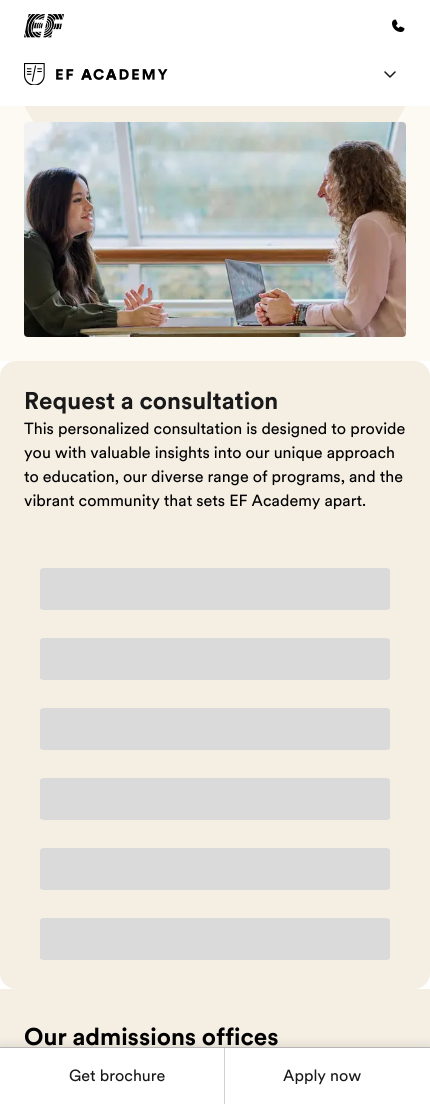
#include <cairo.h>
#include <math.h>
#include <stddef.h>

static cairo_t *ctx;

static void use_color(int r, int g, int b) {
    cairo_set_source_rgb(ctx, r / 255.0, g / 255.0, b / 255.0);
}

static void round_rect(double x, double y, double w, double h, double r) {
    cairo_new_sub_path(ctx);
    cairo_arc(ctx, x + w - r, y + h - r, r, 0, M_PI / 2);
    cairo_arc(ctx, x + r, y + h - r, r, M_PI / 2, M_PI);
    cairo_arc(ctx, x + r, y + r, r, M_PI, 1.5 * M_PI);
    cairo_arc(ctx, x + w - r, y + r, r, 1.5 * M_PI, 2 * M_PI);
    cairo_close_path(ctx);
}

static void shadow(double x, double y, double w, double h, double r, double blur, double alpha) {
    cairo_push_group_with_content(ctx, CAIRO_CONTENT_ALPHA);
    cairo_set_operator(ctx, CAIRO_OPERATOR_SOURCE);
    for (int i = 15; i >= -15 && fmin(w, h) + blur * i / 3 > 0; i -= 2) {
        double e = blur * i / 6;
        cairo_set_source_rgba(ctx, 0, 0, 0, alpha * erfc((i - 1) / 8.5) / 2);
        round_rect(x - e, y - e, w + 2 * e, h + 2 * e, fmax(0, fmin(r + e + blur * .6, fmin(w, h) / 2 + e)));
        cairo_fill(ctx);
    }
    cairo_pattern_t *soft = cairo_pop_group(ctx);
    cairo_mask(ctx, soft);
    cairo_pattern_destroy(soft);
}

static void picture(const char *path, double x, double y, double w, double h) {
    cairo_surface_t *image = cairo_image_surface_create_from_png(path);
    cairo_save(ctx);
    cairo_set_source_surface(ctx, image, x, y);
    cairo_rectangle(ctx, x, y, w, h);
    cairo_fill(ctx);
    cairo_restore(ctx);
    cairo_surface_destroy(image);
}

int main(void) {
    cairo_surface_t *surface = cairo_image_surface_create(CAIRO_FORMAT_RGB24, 430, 1104);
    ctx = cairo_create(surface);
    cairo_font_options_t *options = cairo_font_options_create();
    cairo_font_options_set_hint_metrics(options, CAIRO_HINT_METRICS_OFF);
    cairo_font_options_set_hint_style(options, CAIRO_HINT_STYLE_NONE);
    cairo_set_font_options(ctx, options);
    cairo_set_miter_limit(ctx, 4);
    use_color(255, 255, 255);
    cairo_paint(ctx);
    use_color(253, 250, 244);
    cairo_rectangle(ctx, 0, 106, 430, 255);
    cairo_fill(ctx);
    use_color(244, 238, 227);
    cairo_new_path(ctx);
    cairo_move_to(ctx, 0, -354);
    cairo_line_to(ctx, 430, -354);
    cairo_line_to(ctx, 430, 7);
    cairo_curve_to(ctx, 430, 125, 334, 222, 215, 222);
    cairo_curve_to(ctx, 96, 222, 0, 125, 0, 7);
    cairo_close_path(ctx);
    cairo_fill(ctx);
    use_color(255, 255, 255);
    cairo_rectangle(ctx, 0, 0, 430, 42);
    cairo_fill(ctx);
    picture("img1.png", 24, 14, 40, 24);
    picture("img2.png", 392, 19, 13, 13);
    cairo_rectangle(ctx, 3, 42, 424, 64);
    cairo_fill(ctx);
    picture("img3.png", 24, 63, 144, 22);
    cairo_new_path(ctx);
    cairo_move_to(ctx, 385, 72);
    cairo_line_to(ctx, 390, 77);
    cairo_move_to(ctx, 390, 77);
    cairo_line_to(ctx, 395, 72);
    use_color(25, 25, 25);
    cairo_set_line_width(ctx, 1.5);
    cairo_set_line_cap(ctx, CAIRO_LINE_CAP_ROUND);
    cairo_set_line_join(ctx, CAIRO_LINE_JOIN_ROUND);
    cairo_stroke(ctx);
    picture("img4.png", 24, 122, 382, 215);
    use_color(244, 238, 227);
    round_rect(0, 361, 430, 628, 16);
    cairo_fill(ctx);
    cairo_select_font_face(ctx, "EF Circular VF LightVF", CAIRO_FONT_SLANT_NORMAL, CAIRO_FONT_WEIGHT_BOLD);
    cairo_set_font_size(ctx, 24);
    use_color(25, 25, 25);
    cairo_move_to(ctx, 24, 409);
    cairo_show_text(ctx, "Request a consultation");
    cairo_select_font_face(ctx, "EF Circular VF LightVF", CAIRO_FONT_SLANT_NORMAL, CAIRO_FONT_WEIGHT_NORMAL);
    cairo_set_font_size(ctx, 16);
    use_color(0, 0, 0);
    cairo_move_to(ctx, 24, 434);
    cairo_show_text(ctx, "This personalized consultation is designed to provide");
    cairo_move_to(ctx, 24, 458);
    cairo_show_text(ctx, "you with valuable insights into our unique approach");
    cairo_move_to(ctx, 24, 482);
    cairo_show_text(ctx, "to education, our diverse range of programs, and the");
    cairo_move_to(ctx, 24, 506);
    cairo_show_text(ctx, "vibrant community that sets EF Academy apart.");
    use_color(218, 218, 218);
    cairo_new_path(ctx);
    cairo_move_to(ctx, 44, 568);
    cairo_line_to(ctx, 386, 568);
    cairo_curve_to(ctx, 388, 568, 390, 569, 390, 571);
    cairo_line_to(ctx, 390, 608);
    cairo_curve_to(ctx, 390, 609, 388, 610, 386, 610);
    cairo_line_to(ctx, 44, 610);
    cairo_curve_to(ctx, 42, 610, 40, 609, 40, 608);
    cairo_line_to(ctx, 40, 571);
    cairo_curve_to(ctx, 40, 569, 42, 568, 44, 568);
    cairo_close_path(ctx);
    cairo_fill(ctx);
    cairo_new_path(ctx);
    cairo_move_to(ctx, 44, 638);
    cairo_line_to(ctx, 386, 638);
    cairo_curve_to(ctx, 388, 638, 390, 639, 390, 641);
    cairo_line_to(ctx, 390, 678);
    cairo_curve_to(ctx, 390, 679, 388, 680, 386, 680);
    cairo_line_to(ctx, 44, 680);
    cairo_curve_to(ctx, 42, 680, 40, 679, 40, 678);
    cairo_line_to(ctx, 40, 641);
    cairo_curve_to(ctx, 40, 639, 42, 638, 44, 638);
    cairo_close_path(ctx);
    cairo_fill(ctx);
    cairo_new_path(ctx);
    cairo_move_to(ctx, 44, 708);
    cairo_line_to(ctx, 386, 708);
    cairo_curve_to(ctx, 388, 708, 390, 709, 390, 711);
    cairo_line_to(ctx, 390, 748);
    cairo_curve_to(ctx, 390, 749, 388, 750, 386, 750);
    cairo_line_to(ctx, 44, 750);
    cairo_curve_to(ctx, 42, 750, 40, 749, 40, 748);
    cairo_line_to(ctx, 40, 711);
    cairo_curve_to(ctx, 40, 709, 42, 708, 44, 708);
    cairo_close_path(ctx);
    cairo_fill(ctx);
    cairo_new_path(ctx);
    cairo_move_to(ctx, 44, 778);
    cairo_line_to(ctx, 386, 778);
    cairo_curve_to(ctx, 388, 778, 390, 779, 390, 781);
    cairo_line_to(ctx, 390, 818);
    cairo_curve_to(ctx, 390, 819, 388, 820, 386, 820);
    cairo_line_to(ctx, 44, 820);
    cairo_curve_to(ctx, 42, 820, 40, 819, 40, 818);
    cairo_line_to(ctx, 40, 781);
    cairo_curve_to(ctx, 40, 779, 42, 778, 44, 778);
    cairo_close_path(ctx);
    cairo_fill(ctx);
    cairo_new_path(ctx);
    cairo_move_to(ctx, 44, 848);
    cairo_line_to(ctx, 386, 848);
    cairo_curve_to(ctx, 388, 848, 390, 849, 390, 851);
    cairo_line_to(ctx, 390, 888);
    cairo_curve_to(ctx, 390, 889, 388, 890, 386, 890);
    cairo_line_to(ctx, 44, 890);
    cairo_curve_to(ctx, 42, 890, 40, 889, 40, 888);
    cairo_line_to(ctx, 40, 851);
    cairo_curve_to(ctx, 40, 849, 42, 848, 44, 848);
    cairo_close_path(ctx);
    cairo_fill(ctx);
    cairo_new_path(ctx);
    cairo_move_to(ctx, 44, 918);
    cairo_line_to(ctx, 386, 918);
    cairo_curve_to(ctx, 388, 918, 390, 919, 390, 921);
    cairo_line_to(ctx, 390, 958);
    cairo_curve_to(ctx, 390, 959, 388, 960, 386, 960);
    cairo_line_to(ctx, 44, 960);
    cairo_curve_to(ctx, 42, 960, 40, 959, 40, 958);
    cairo_line_to(ctx, 40, 921);
    cairo_curve_to(ctx, 40, 919, 42, 918, 44, 918);
    cairo_close_path(ctx);
    cairo_fill(ctx);
    use_color(244, 238, 227);
    cairo_rectangle(ctx, 0, 989, 430, 58);
    cairo_fill(ctx);
    cairo_select_font_face(ctx, "EF Circular VF LightVF", CAIRO_FONT_SLANT_NORMAL, CAIRO_FONT_WEIGHT_BOLD);
    cairo_set_font_size(ctx, 24);
    use_color(0, 0, 0);
    cairo_move_to(ctx, 24, 1045);
    cairo_show_text(ctx, "Our admissions offices");
    use_color(0, 0, 0);
    shadow(0, 1045, 430, 57, 0, 5, 0.1);
    use_color(255, 255, 255);
    cairo_rectangle(ctx, 0, 1048, 430, 56);
    cairo_fill(ctx);
    use_color(183, 183, 183);
    cairo_rectangle(ctx, 0, 1047, 430, 1);
    cairo_fill(ctx);
    use_color(209, 209, 209);
    cairo_rectangle(ctx, 224, 1048, 1, 56);
    cairo_fill(ctx);
    cairo_select_font_face(ctx, "EF Circular VF LightVF", CAIRO_FONT_SLANT_NORMAL, CAIRO_FONT_WEIGHT_NORMAL);
    cairo_set_font_size(ctx, 16);
    use_color(25, 25, 25);
    cairo_move_to(ctx, 69, 1081);
    cairo_show_text(ctx, "Get brochure");
    cairo_move_to(ctx, 283, 1081);
    cairo_show_text(ctx, "Apply now");
    cairo_surface_write_to_png(surface, "result.png");
    cairo_font_options_destroy(options);
    cairo_destroy(ctx);
    cairo_surface_destroy(surface);
    return 0;
}
